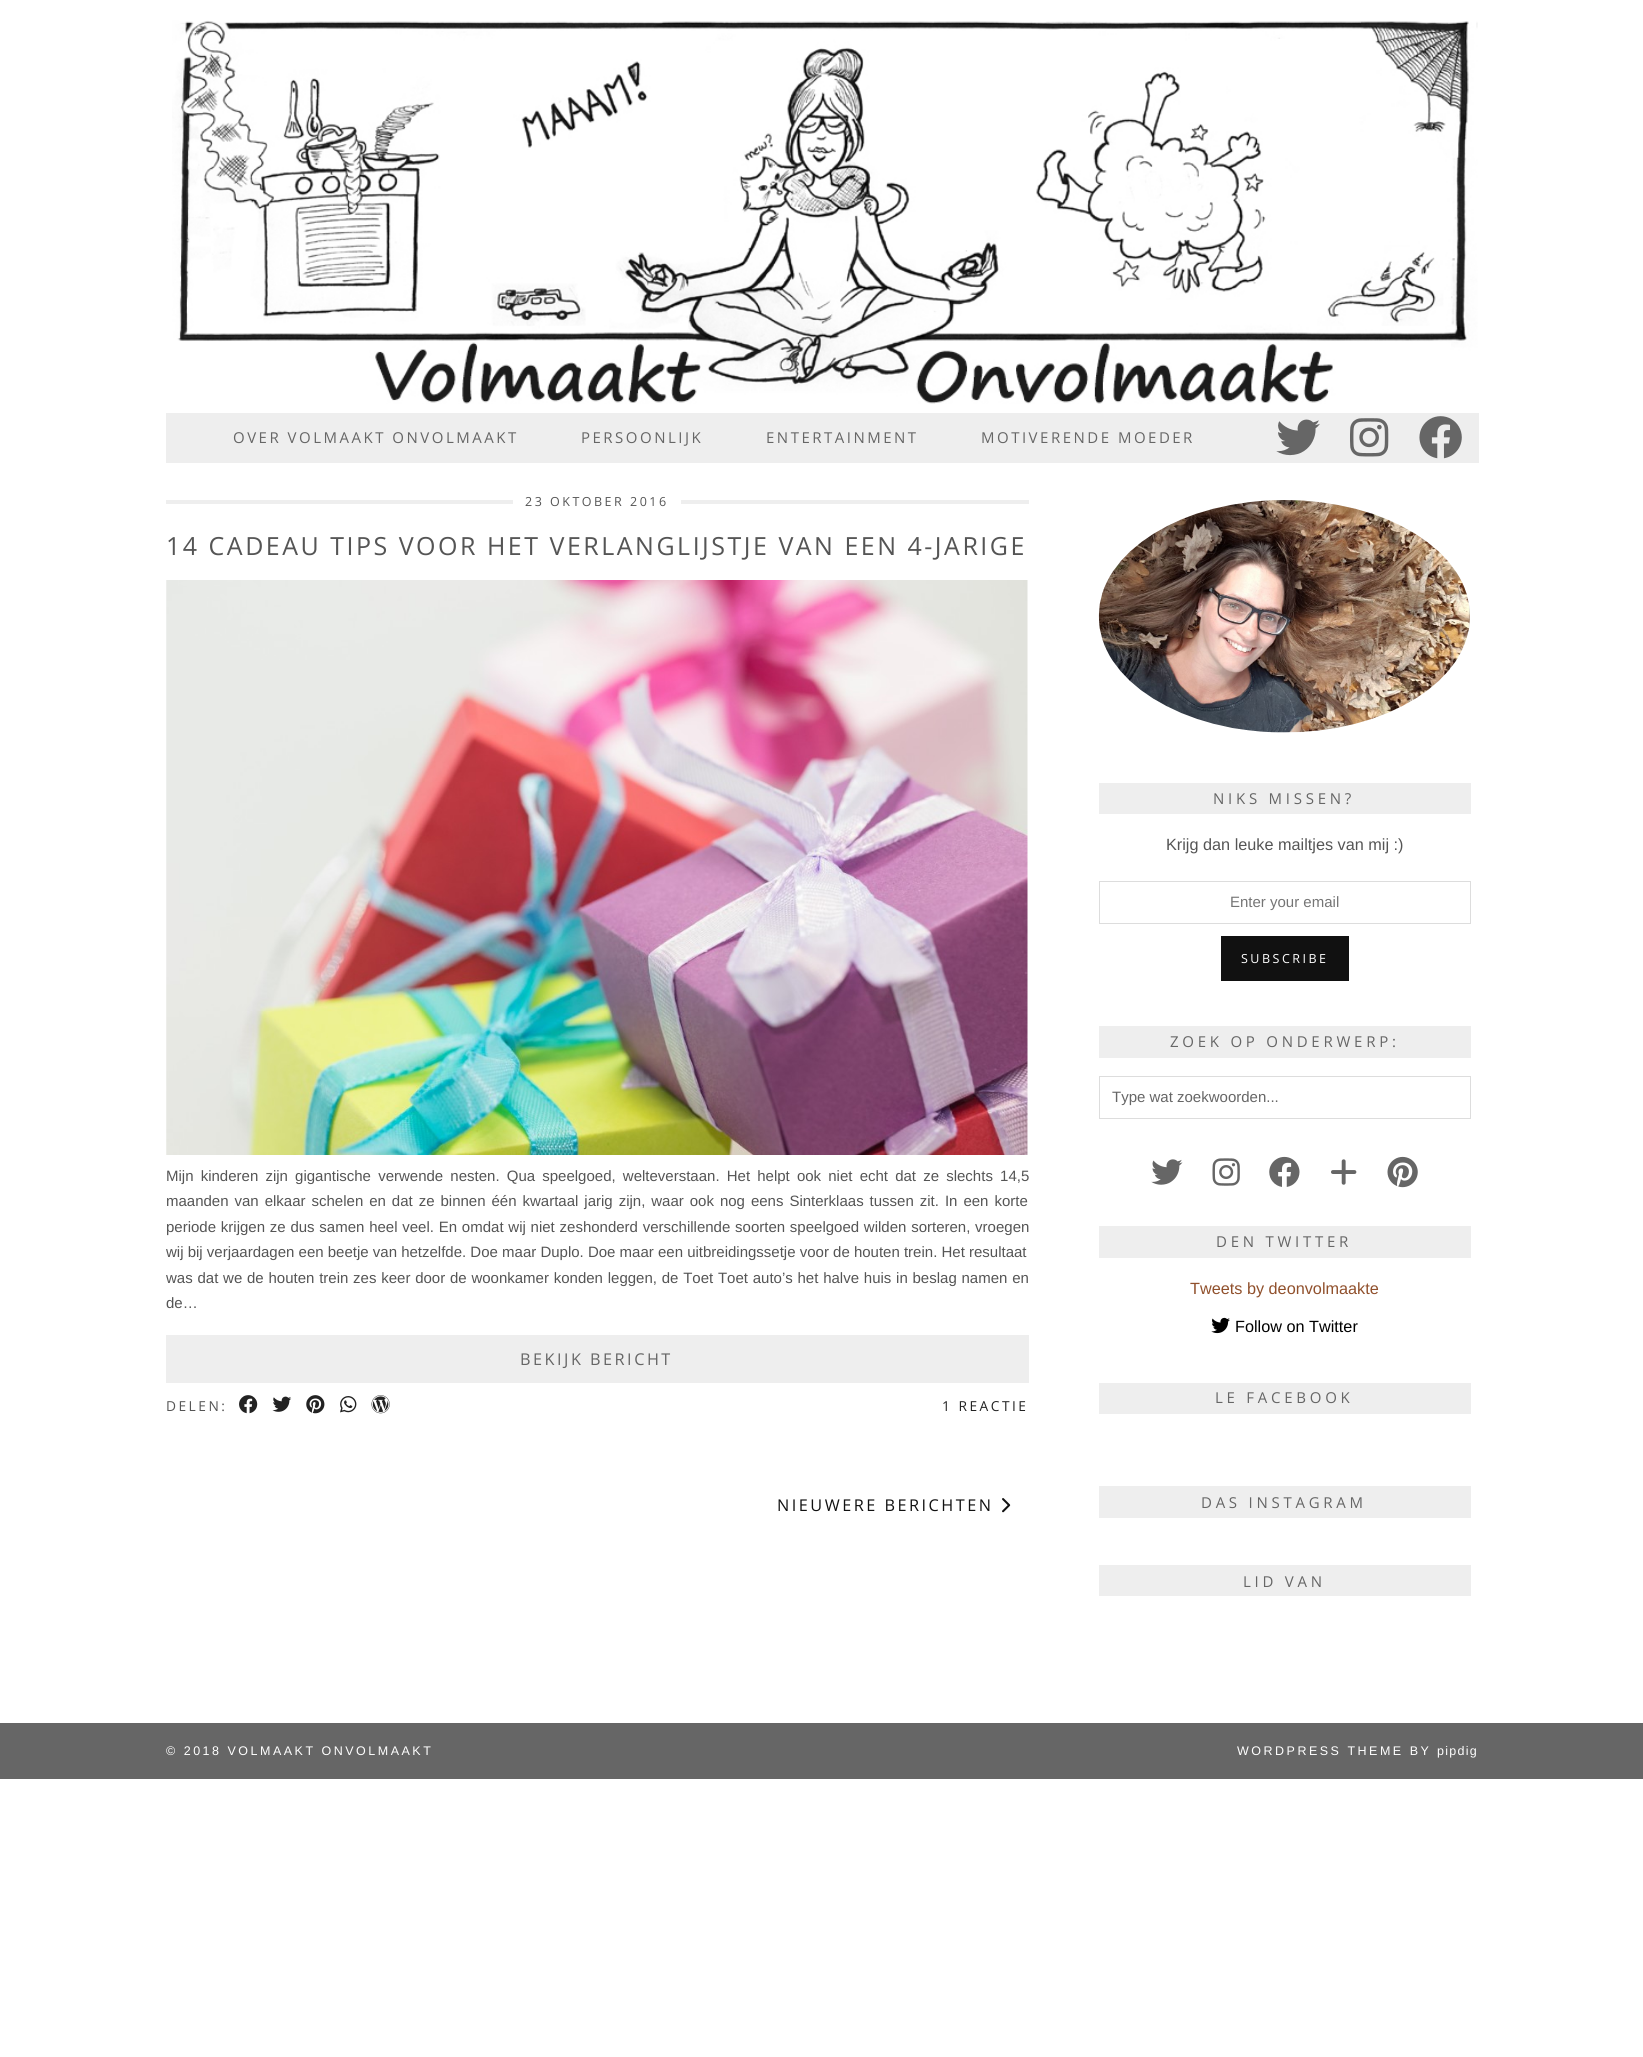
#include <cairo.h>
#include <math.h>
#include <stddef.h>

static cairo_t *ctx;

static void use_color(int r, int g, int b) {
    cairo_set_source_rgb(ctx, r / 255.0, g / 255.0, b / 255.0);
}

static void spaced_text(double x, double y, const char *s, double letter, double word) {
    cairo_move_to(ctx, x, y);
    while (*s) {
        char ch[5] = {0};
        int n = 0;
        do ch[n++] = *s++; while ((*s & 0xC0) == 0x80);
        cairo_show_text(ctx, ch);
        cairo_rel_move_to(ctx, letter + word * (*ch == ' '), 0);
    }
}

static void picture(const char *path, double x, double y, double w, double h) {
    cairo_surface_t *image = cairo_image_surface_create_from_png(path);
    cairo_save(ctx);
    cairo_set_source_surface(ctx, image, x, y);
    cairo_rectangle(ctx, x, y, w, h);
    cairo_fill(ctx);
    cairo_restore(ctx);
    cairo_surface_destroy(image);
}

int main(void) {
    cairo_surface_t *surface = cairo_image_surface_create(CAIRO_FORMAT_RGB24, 1643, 2057);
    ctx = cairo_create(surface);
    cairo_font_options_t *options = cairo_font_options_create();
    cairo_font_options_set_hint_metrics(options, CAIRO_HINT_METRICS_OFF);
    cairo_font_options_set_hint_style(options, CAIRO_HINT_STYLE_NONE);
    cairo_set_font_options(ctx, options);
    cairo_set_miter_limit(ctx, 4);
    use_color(255, 255, 255);
    cairo_paint(ctx);
    picture("img1.png", 172, 20, 1306, 384);
    use_color(238, 238, 238);
    cairo_rectangle(ctx, 166, 413, 1313, 50);
    cairo_fill(ctx);
    cairo_select_font_face(ctx, "Open Sans", CAIRO_FONT_SLANT_NORMAL, CAIRO_FONT_WEIGHT_NORMAL);
    cairo_set_font_size(ctx, 15);
    use_color(102, 102, 102);
    spaced_text(233, 443, "OVER VOLMAAKT ONVOLMAAKT", 2.5, 0);
    spaced_text(581, 443, "PERSOONLIJK", 2.5, 0);
    spaced_text(766, 443, "ENTERTAINMENT", 2.5, 0);
    spaced_text(981, 443, "MOTIVERENDE MOEDER", 2.5, 0);
    picture("img2.png", 1276, 419, 44, 37);
    picture("img3.png", 1350, 418, 39, 39);
    picture("img4.png", 1419, 416, 43, 43);
    use_color(238, 238, 238);
    cairo_rectangle(ctx, 166, 500, 863, 4);
    cairo_fill(ctx);
    use_color(255, 255, 255);
    cairo_rectangle(ctx, 513, 500, 168, 4);
    cairo_fill(ctx);
    cairo_set_font_size(ctx, 12.5);
    use_color(85, 85, 85);
    spaced_text(525, 506, "23 OKTOBER 2016", 2.5, 0);
    cairo_set_font_size(ctx, 25);
    spaced_text(166, 555, "14 CADEAU TIPS VOOR HET VERLANGLIJSTJE VAN EEN 4-JARIGE", 2.5, 0);
    picture("img5.png", 166, 580, 862, 575);
    cairo_select_font_face(ctx, "Liberation Sans", CAIRO_FONT_SLANT_NORMAL, CAIRO_FONT_WEIGHT_NORMAL);
    cairo_set_font_size(ctx, 15);
    spaced_text(166, 1181, "Mijn kinderen zijn gigantische verwende nesten. Qua speelgoed, welteverstaan. Het helpt ook niet echt dat ze slechts 14,5", 0, 3);
    spaced_text(166, 1206, "maanden van elkaar schelen en dat ze binnen één kwartaal jarig zijn, waar ook nog eens Sinterklaas tussen zit. In een korte", 0, 1.8);
    spaced_text(166, 1232, "periode krijgen ze dus samen heel veel. En omdat wij niet zeshonderd verschillende soorten speelgoed wilden sorteren, vroegen", 0, 0.6);
    cairo_move_to(ctx, 166, 1257);
    cairo_show_text(ctx, "wij bij verjaardagen een beetje van hetzelfde. Doe maar Duplo. Doe maar een uitbreidingssetje voor de houten trein. Het resultaat");
    spaced_text(166, 1283, "was dat we de houten trein zes keer door de woonkamer konden leggen, de Toet Toet auto’s het halve huis in beslag namen en", 0, 0.6);
    cairo_move_to(ctx, 166, 1308);
    cairo_show_text(ctx, "de…");
    use_color(238, 238, 238);
    cairo_rectangle(ctx, 166, 1335, 863, 48);
    cairo_fill(ctx);
    cairo_select_font_face(ctx, "Open Sans", CAIRO_FONT_SLANT_NORMAL, CAIRO_FONT_WEIGHT_NORMAL);
    cairo_set_font_size(ctx, 16.25);
    use_color(102, 102, 102);
    spaced_text(520, 1365, "BEKIJK BERICHT", 2.5, 0);
    cairo_set_font_size(ctx, 13.75);
    use_color(85, 85, 85);
    spaced_text(166, 1411, "DELEN:", 2.5, 0);
    picture("img6.png", 239, 1395, 19, 19);
    picture("img7.png", 272, 1396, 20, 16);
    picture("img8.png", 306, 1395, 19, 19);
    picture("img9.png", 340, 1396, 17, 17);
    picture("img10.png", 371, 1395, 19, 19);
    use_color(34, 34, 34);
    spaced_text(942, 1411, "1 REACTIE", 2.5, 0);
    cairo_set_font_size(ctx, 16.25);
    use_color(17, 17, 17);
    spaced_text(777, 1511, "NIEUWERE BERICHTEN", 2.5, 0);
    picture("img11.png", 1002, 1498, 9, 15);
    picture("img12.png", 1098, 500, 372, 233);
    use_color(238, 238, 238);
    cairo_rectangle(ctx, 1099, 783, 372, 31);
    cairo_fill(ctx);
    cairo_set_font_size(ctx, 15);
    use_color(102, 102, 102);
    spaced_text(1213, 804, "NIKS MISSEN?", 3.75, 0);
    cairo_select_font_face(ctx, "Liberation Sans", CAIRO_FONT_SLANT_NORMAL, CAIRO_FONT_WEIGHT_NORMAL);
    cairo_set_font_size(ctx, 16.25);
    use_color(85, 85, 85);
    cairo_move_to(ctx, 1166, 850);
    cairo_show_text(ctx, "Krijg dan leuke mailtjes van mij :)");
    cairo_rectangle(ctx, 1099.5, 881.5, 371, 42);
    use_color(221, 221, 221);
    cairo_set_line_width(ctx, 1);
    cairo_stroke(ctx);
    cairo_set_font_size(ctx, 15);
    use_color(117, 117, 117);
    cairo_move_to(ctx, 1230, 907);
    cairo_show_text(ctx, "Enter your email");
    use_color(17, 17, 17);
    cairo_rectangle(ctx, 1221, 936, 128, 45);
    cairo_fill(ctx);
    cairo_select_font_face(ctx, "Open Sans", CAIRO_FONT_SLANT_NORMAL, CAIRO_FONT_WEIGHT_NORMAL);
    cairo_set_font_size(ctx, 12.5);
    use_color(255, 255, 255);
    spaced_text(1241, 963, "SUBSCRIBE", 2.5, 0);
    use_color(238, 238, 238);
    cairo_rectangle(ctx, 1099, 1026, 372, 32);
    cairo_fill(ctx);
    cairo_set_font_size(ctx, 15);
    use_color(102, 102, 102);
    spaced_text(1170, 1047, "ZOEK OP ONDERWERP:", 3.75, 0);
    cairo_rectangle(ctx, 1099.5, 1076.5, 371, 42);
    use_color(221, 221, 221);
    cairo_stroke(ctx);
    cairo_select_font_face(ctx, "Liberation Sans", CAIRO_FONT_SLANT_NORMAL, CAIRO_FONT_WEIGHT_NORMAL);
    use_color(102, 102, 102);
    cairo_move_to(ctx, 1112, 1102);
    cairo_show_text(ctx, "Type wat zoekwoorden...");
    picture("img13.png", 1151, 1159, 32, 26);
    picture("img14.png", 1212, 1158, 28, 28);
    picture("img15.png", 1269, 1156, 31, 31);
    picture("img16.png", 1331, 1159, 26, 26);
    picture("img17.png", 1387, 1156, 31, 32);
    use_color(238, 238, 238);
    cairo_rectangle(ctx, 1099, 1226, 372, 32);
    cairo_fill(ctx);
    cairo_select_font_face(ctx, "Open Sans", CAIRO_FONT_SLANT_NORMAL, CAIRO_FONT_WEIGHT_NORMAL);
    use_color(102, 102, 102);
    spaced_text(1216, 1247, "DEN TWITTER", 3.75, 0);
    cairo_select_font_face(ctx, "Liberation Sans", CAIRO_FONT_SLANT_NORMAL, CAIRO_FONT_WEIGHT_NORMAL);
    cairo_set_font_size(ctx, 16.25);
    use_color(144, 80, 44);
    cairo_move_to(ctx, 1190, 1294);
    cairo_show_text(ctx, "Tweets by deonvolmaakte");
    picture("img18.png", 1211, 1317, 19, 17);
    use_color(0, 0, 0);
    cairo_move_to(ctx, 1235, 1332);
    cairo_show_text(ctx, "Follow on Twitter");
    use_color(238, 238, 238);
    cairo_rectangle(ctx, 1099, 1383, 372, 31);
    cairo_fill(ctx);
    cairo_select_font_face(ctx, "Open Sans", CAIRO_FONT_SLANT_NORMAL, CAIRO_FONT_WEIGHT_NORMAL);
    cairo_set_font_size(ctx, 15);
    use_color(102, 102, 102);
    spaced_text(1215, 1403, "LE FACEBOOK", 3.75, 0);
    use_color(238, 238, 238);
    cairo_rectangle(ctx, 1099, 1486, 372, 32);
    cairo_fill(ctx);
    use_color(102, 102, 102);
    spaced_text(1201, 1508, "DAS INSTAGRAM", 3.75, 0);
    use_color(238, 238, 238);
    cairo_rectangle(ctx, 1099, 1565, 372, 31);
    cairo_fill(ctx);
    use_color(102, 102, 102);
    spaced_text(1243, 1587, "LID VAN", 3.75, 0);
    cairo_rectangle(ctx, 0, 1723, 1643, 56);
    cairo_fill(ctx);
    cairo_select_font_face(ctx, "Liberation Sans", CAIRO_FONT_SLANT_NORMAL, CAIRO_FONT_WEIGHT_NORMAL);
    cairo_set_font_size(ctx, 12.5);
    use_color(255, 255, 255);
    spaced_text(166, 1755, "© 2018 VOLMAAKT ONVOLMAAKT", 2.5, 0);
    spaced_text(1237, 1755, "WORDPRESS THEME BY", 2.5, 0);
    spaced_text(1437, 1755, "pipdig", 1.25, 0);
    cairo_surface_write_to_png(surface, "result.png");
    cairo_font_options_destroy(options);
    cairo_destroy(ctx);
    cairo_surface_destroy(surface);
    return 0;
}
